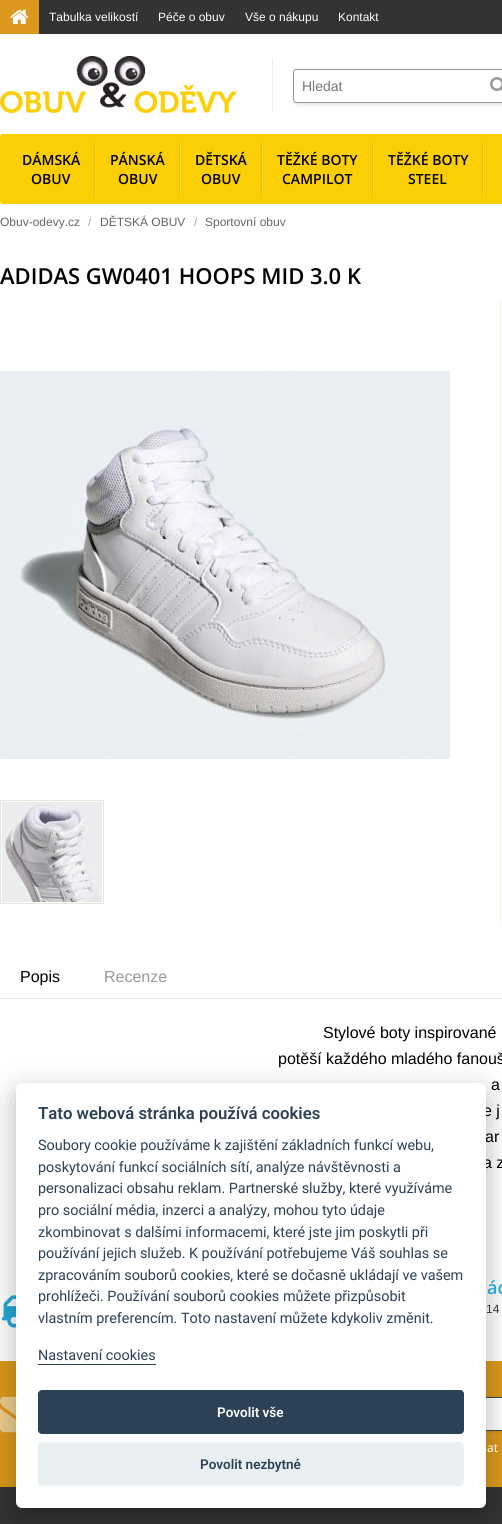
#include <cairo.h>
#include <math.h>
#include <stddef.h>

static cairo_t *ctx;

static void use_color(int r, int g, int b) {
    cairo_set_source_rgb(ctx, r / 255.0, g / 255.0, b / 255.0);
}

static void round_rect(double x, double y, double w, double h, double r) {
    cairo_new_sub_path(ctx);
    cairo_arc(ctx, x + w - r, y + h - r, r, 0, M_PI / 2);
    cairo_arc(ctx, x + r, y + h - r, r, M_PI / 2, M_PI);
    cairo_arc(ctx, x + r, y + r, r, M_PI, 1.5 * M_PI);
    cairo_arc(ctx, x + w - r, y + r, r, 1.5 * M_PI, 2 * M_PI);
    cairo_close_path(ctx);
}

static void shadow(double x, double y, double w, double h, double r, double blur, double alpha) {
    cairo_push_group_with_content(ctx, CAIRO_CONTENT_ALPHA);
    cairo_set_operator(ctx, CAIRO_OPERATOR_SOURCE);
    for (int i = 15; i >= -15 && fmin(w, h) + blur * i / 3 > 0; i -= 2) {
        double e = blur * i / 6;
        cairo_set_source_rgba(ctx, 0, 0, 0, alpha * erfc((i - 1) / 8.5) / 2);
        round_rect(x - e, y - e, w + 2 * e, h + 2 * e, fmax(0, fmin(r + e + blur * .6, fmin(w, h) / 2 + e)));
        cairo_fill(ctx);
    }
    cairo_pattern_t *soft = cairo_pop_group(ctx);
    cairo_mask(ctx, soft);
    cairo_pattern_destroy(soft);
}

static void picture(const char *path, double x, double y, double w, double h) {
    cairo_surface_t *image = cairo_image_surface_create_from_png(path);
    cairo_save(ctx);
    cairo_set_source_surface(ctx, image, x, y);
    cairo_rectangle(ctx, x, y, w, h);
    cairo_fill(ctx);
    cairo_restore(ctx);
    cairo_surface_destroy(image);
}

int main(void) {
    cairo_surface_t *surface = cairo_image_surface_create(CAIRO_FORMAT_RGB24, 502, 1524);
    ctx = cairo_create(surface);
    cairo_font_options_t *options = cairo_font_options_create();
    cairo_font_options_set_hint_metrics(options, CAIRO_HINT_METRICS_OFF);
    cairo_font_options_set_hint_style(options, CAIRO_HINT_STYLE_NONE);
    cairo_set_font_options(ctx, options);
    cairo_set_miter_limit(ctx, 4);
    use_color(255, 255, 255);
    cairo_paint(ctx);
    use_color(51, 51, 51);
    cairo_rectangle(ctx, 39, 0, 463, 34);
    cairo_fill(ctx);
    use_color(219, 152, 28);
    cairo_rectangle(ctx, 0, 0, 39, 34);
    cairo_fill(ctx);
    picture("img1.png", 10, 9, 19, 15);
    cairo_select_font_face(ctx, "Liberation Sans", CAIRO_FONT_SLANT_NORMAL, CAIRO_FONT_WEIGHT_NORMAL);
    cairo_set_font_size(ctx, 12);
    use_color(255, 255, 255);
    cairo_move_to(ctx, 49, 21);
    cairo_show_text(ctx, "Tabulka velikostí");
    cairo_move_to(ctx, 158, 21);
    cairo_show_text(ctx, "Péče o obuv");
    cairo_move_to(ctx, 245, 21);
    cairo_show_text(ctx, "Vše o nákupu");
    cairo_move_to(ctx, 338, 21);
    cairo_show_text(ctx, "Kontakt");
    picture("img2.png", 0, 56, 236, 57);
    cairo_new_path(ctx);
    cairo_move_to(ctx, 272.5, 59);
    cairo_line_to(ctx, 272.5, 113);
    use_color(222, 222, 222);
    cairo_set_line_width(ctx, 1);
    cairo_set_dash(ctx, (double[]){1, 1}, 2, 0);
    cairo_stroke(ctx);
    use_color(0, 0, 0);
    shadow(295, 71, 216, 34, 3, 2, 0.1);
    use_color(255, 255, 255);
    round_rect(293.5, 69.5, 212, 33, 2.5);
    cairo_fill_preserve(ctx);
    use_color(153, 153, 153);
    cairo_set_dash(ctx, NULL, 0, 0);
    cairo_stroke(ctx);
    cairo_set_font_size(ctx, 14);
    use_color(117, 117, 117);
    cairo_move_to(ctx, 302, 91);
    cairo_show_text(ctx, "Hledat");
    picture("img3.png", 490, 77, 12, 14);
    use_color(252, 206, 4);
    round_rect(0, 134, 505, 70, 3);
    cairo_fill(ctx);
    use_color(233, 191, 10);
    cairo_rectangle(ctx, 94, 142, 1, 54);
    cairo_fill(ctx);
    cairo_select_font_face(ctx, "Open Sans SemiBold", CAIRO_FONT_SLANT_NORMAL, CAIRO_FONT_WEIGHT_NORMAL);
    use_color(0, 0, 0);
    cairo_move_to(ctx, 22, 165);
    cairo_show_text(ctx, "DÁMSKÁ");
    cairo_move_to(ctx, 31, 184);
    cairo_show_text(ctx, "OBUV");
    use_color(233, 191, 10);
    cairo_rectangle(ctx, 179, 142, 1, 54);
    cairo_fill(ctx);
    use_color(253, 216, 54);
    cairo_rectangle(ctx, 95, 142, 1, 54);
    cairo_fill(ctx);
    use_color(0, 0, 0);
    cairo_move_to(ctx, 110, 165);
    cairo_show_text(ctx, "PÁNSKÁ");
    cairo_move_to(ctx, 118, 184);
    cairo_show_text(ctx, "OBUV");
    use_color(233, 191, 10);
    cairo_rectangle(ctx, 261, 142, 1, 54);
    cairo_fill(ctx);
    use_color(253, 216, 54);
    cairo_rectangle(ctx, 180, 142, 1, 54);
    cairo_fill(ctx);
    use_color(0, 0, 0);
    cairo_move_to(ctx, 195, 165);
    cairo_show_text(ctx, "DĚTSKÁ");
    cairo_move_to(ctx, 201, 184);
    cairo_show_text(ctx, "OBUV");
    use_color(233, 191, 10);
    cairo_rectangle(ctx, 372, 142, 1, 54);
    cairo_fill(ctx);
    use_color(253, 216, 54);
    cairo_rectangle(ctx, 262, 142, 1, 54);
    cairo_fill(ctx);
    use_color(0, 0, 0);
    cairo_move_to(ctx, 277, 165);
    cairo_show_text(ctx, "TĚŽKÉ BOTY");
    cairo_move_to(ctx, 282, 184);
    cairo_show_text(ctx, "CAMPILOT");
    use_color(233, 191, 10);
    cairo_rectangle(ctx, 482, 142, 1, 54);
    cairo_fill(ctx);
    use_color(253, 216, 54);
    cairo_rectangle(ctx, 373, 142, 1, 54);
    cairo_fill(ctx);
    use_color(0, 0, 0);
    cairo_move_to(ctx, 388, 165);
    cairo_show_text(ctx, "TĚŽKÉ BOTY");
    cairo_move_to(ctx, 408, 184);
    cairo_show_text(ctx, "STEEL");
    use_color(253, 216, 54);
    cairo_rectangle(ctx, 483, 142, 1, 54);
    cairo_fill(ctx);
    cairo_select_font_face(ctx, "Liberation Sans", CAIRO_FONT_SLANT_NORMAL, CAIRO_FONT_WEIGHT_NORMAL);
    cairo_set_font_size(ctx, 12);
    use_color(102, 102, 102);
    cairo_move_to(ctx, 0, 226);
    cairo_show_text(ctx, "Obuv-odevy.cz");
    use_color(170, 170, 170);
    cairo_move_to(ctx, 88, 226);
    cairo_show_text(ctx, "/");
    use_color(102, 102, 102);
    cairo_move_to(ctx, 100, 226);
    cairo_show_text(ctx, "DĚTSKÁ OBUV");
    use_color(170, 170, 170);
    cairo_move_to(ctx, 194, 226);
    cairo_show_text(ctx, "/");
    use_color(102, 102, 102);
    cairo_move_to(ctx, 205, 226);
    cairo_show_text(ctx, "Sportovní obuv");
    cairo_select_font_face(ctx, "Open Sans SemiBold", CAIRO_FONT_SLANT_NORMAL, CAIRO_FONT_WEIGHT_NORMAL);
    cairo_set_font_size(ctx, 22);
    use_color(0, 0, 0);
    cairo_move_to(ctx, 0, 284);
    cairo_show_text(ctx, "ADIDAS GW0401 HOOPS MID 3.0 K");
    cairo_new_path(ctx);
    cairo_move_to(ctx, 500.5, 301);
    cairo_line_to(ctx, 500.5, 924);
    use_color(228, 231, 220);
    cairo_set_dash(ctx, (double[]){1, 1}, 2, 0);
    cairo_stroke(ctx);
    picture("img4.png", 0, 371, 450, 388);
    picture("img5.png", 2, 802, 100, 100);
    cairo_rectangle(ctx, 0.5, 800.5, 103, 103);
    cairo_set_dash(ctx, NULL, 0, 0);
    cairo_stroke(ctx);
    use_color(230, 230, 230);
    cairo_rectangle(ctx, 0, 998, 502, 1);
    cairo_fill(ctx);
    cairo_select_font_face(ctx, "Liberation Sans", CAIRO_FONT_SLANT_NORMAL, CAIRO_FONT_WEIGHT_NORMAL);
    cairo_set_font_size(ctx, 16);
    use_color(0, 0, 0);
    cairo_move_to(ctx, 20, 982);
    cairo_show_text(ctx, "Popis");
    use_color(153, 153, 153);
    cairo_move_to(ctx, 104, 982);
    cairo_show_text(ctx, "Recenze");
    use_color(0, 0, 0);
    cairo_move_to(ctx, 323, 1038);
    cairo_show_text(ctx, "Stylové boty inspirované");
    cairo_move_to(ctx, 278, 1064);
    cairo_show_text(ctx, "potěší každého mladého fanouš");
    cairo_move_to(ctx, 491, 1090);
    cairo_show_text(ctx, "a");
    cairo_move_to(ctx, 483, 1116);
    cairo_show_text(ctx, "e j");
    cairo_move_to(ctx, 485, 1142);
    cairo_show_text(ctx, "ar");
    cairo_move_to(ctx, 483, 1168);
    cairo_show_text(ctx, "a z");
    picture("img6.png", 1, 1295, 15, 33);
    use_color(219, 152, 28);
    cairo_rectangle(ctx, 0, 1361, 502, 126);
    cairo_fill(ctx);
    picture("img7.png", 0, 1396, 16, 37);
    use_color(0, 0, 0);
    shadow(400, 1398, 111, 34, 4, 1.5, 0.1);
    use_color(255, 255, 255);
    cairo_rectangle(ctx, 486, 1398, 16, 32);
    cairo_fill(ctx);
    cairo_rectangle(ctx, 400.5, 1397.5, 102, 33);
    use_color(52, 77, 87);
    cairo_stroke(ctx);
    use_color(51, 51, 51);
    cairo_rectangle(ctx, 0, 1487, 502, 37);
    cairo_fill(ctx);
    use_color(2, 2, 3);
    shadow(16, 1093, 470, 425, 6, 15, 0.28);
    use_color(255, 255, 255);
    round_rect(16, 1083, 470, 425, 6);
    cairo_fill(ctx);
    cairo_select_font_face(ctx, "Roboto SemiBold", CAIRO_FONT_SLANT_NORMAL, CAIRO_FONT_WEIGHT_NORMAL);
    cairo_set_font_size(ctx, 16.75);
    use_color(45, 65, 86);
    cairo_move_to(ctx, 38, 1119);
    cairo_show_text(ctx, "Tato webová stránka používá cookies");
    cairo_select_font_face(ctx, "Roboto", CAIRO_FONT_SLANT_NORMAL, CAIRO_FONT_WEIGHT_NORMAL);
    cairo_set_font_size(ctx, 14.4);
    cairo_move_to(ctx, 38, 1150);
    cairo_show_text(ctx, "Soubory cookie používáme k zajištění základních funkcí webu,");
    cairo_move_to(ctx, 38, 1172);
    cairo_show_text(ctx, "poskytování funkcí sociálních sítí, analýze návštěvnosti a");
    cairo_move_to(ctx, 38, 1193);
    cairo_show_text(ctx, "personalizaci obsahu reklam. Partnerské služby, které využíváme");
    cairo_move_to(ctx, 38, 1215);
    cairo_show_text(ctx, "pro sociální média, inzerci a analýzy, mohou tyto údaje");
    cairo_move_to(ctx, 38, 1237);
    cairo_show_text(ctx, "zkombinovat s dalšími informacemi, které jste jim poskytli při");
    cairo_move_to(ctx, 38, 1258);
    cairo_show_text(ctx, "používání jejich služeb. K používání potřebujeme Váš souhlas se");
    cairo_move_to(ctx, 38, 1280);
    cairo_show_text(ctx, "zpracováním souborů cookies, které se dočasně ukládají ve vašem");
    cairo_move_to(ctx, 38, 1301);
    cairo_show_text(ctx, "prohlížeči. Používání souborů cookies můžete přizpůsobit");
    cairo_move_to(ctx, 38, 1323);
    cairo_show_text(ctx, "vlastním preferencím. Toto nastavení můžete kdykoliv změnit.");
    cairo_move_to(ctx, 38, 1360);
    cairo_show_text(ctx, "Nastavení cookies");
    cairo_rectangle(ctx, 38, 1364, 118, 1);
    cairo_fill(ctx);
    round_rect(38, 1390, 426, 44, 4);
    cairo_fill(ctx);
    cairo_select_font_face(ctx, "Roboto SemiBold", CAIRO_FONT_SLANT_NORMAL, CAIRO_FONT_WEIGHT_NORMAL);
    cairo_set_font_size(ctx, 13.5);
    use_color(255, 255, 255);
    cairo_move_to(ctx, 217, 1417);
    cairo_show_text(ctx, "Povolit vše");
    use_color(234, 239, 242);
    round_rect(38, 1442, 426, 44, 4);
    cairo_fill(ctx);
    use_color(45, 65, 86);
    cairo_move_to(ctx, 200, 1469);
    cairo_show_text(ctx, "Povolit nezbytné");
    cairo_select_font_face(ctx, "Open Sans SemiBold", CAIRO_FONT_SLANT_NORMAL, CAIRO_FONT_WEIGHT_NORMAL);
    cairo_set_font_size(ctx, 18);
    use_color(38, 168, 214);
    cairo_move_to(ctx, 487, 1294);
    cairo_show_text(ctx, "ác");
    cairo_select_font_face(ctx, "Liberation Sans", CAIRO_FONT_SLANT_NORMAL, CAIRO_FONT_WEIGHT_NORMAL);
    cairo_set_font_size(ctx, 12);
    use_color(51, 51, 51);
    cairo_move_to(ctx, 486, 1313);
    cairo_show_text(ctx, "14");
    cairo_select_font_face(ctx, "Open Sans", CAIRO_FONT_SLANT_NORMAL, CAIRO_FONT_WEIGHT_NORMAL);
    use_color(255, 255, 255);
    cairo_move_to(ctx, 487, 1452);
    cairo_show_text(ctx, "at");
    cairo_surface_write_to_png(surface, "result.png");
    cairo_font_options_destroy(options);
    cairo_destroy(ctx);
    cairo_surface_destroy(surface);
    return 0;
}
